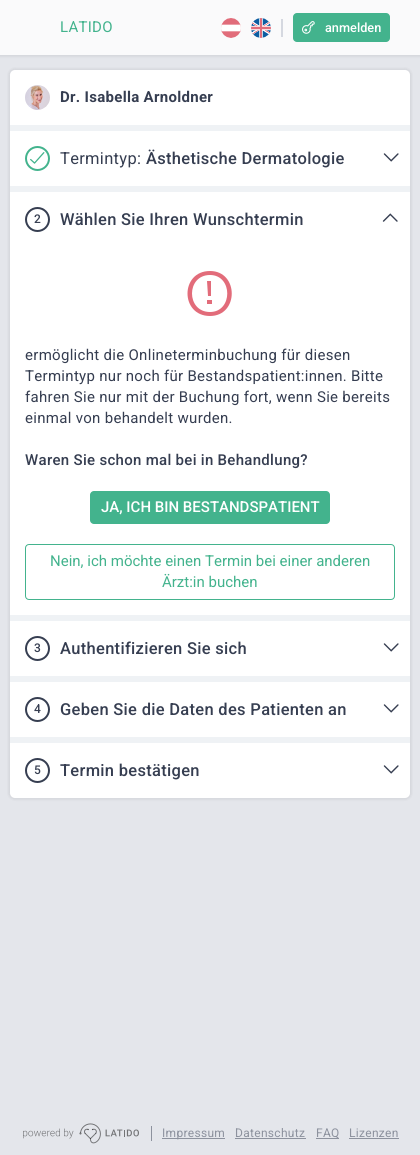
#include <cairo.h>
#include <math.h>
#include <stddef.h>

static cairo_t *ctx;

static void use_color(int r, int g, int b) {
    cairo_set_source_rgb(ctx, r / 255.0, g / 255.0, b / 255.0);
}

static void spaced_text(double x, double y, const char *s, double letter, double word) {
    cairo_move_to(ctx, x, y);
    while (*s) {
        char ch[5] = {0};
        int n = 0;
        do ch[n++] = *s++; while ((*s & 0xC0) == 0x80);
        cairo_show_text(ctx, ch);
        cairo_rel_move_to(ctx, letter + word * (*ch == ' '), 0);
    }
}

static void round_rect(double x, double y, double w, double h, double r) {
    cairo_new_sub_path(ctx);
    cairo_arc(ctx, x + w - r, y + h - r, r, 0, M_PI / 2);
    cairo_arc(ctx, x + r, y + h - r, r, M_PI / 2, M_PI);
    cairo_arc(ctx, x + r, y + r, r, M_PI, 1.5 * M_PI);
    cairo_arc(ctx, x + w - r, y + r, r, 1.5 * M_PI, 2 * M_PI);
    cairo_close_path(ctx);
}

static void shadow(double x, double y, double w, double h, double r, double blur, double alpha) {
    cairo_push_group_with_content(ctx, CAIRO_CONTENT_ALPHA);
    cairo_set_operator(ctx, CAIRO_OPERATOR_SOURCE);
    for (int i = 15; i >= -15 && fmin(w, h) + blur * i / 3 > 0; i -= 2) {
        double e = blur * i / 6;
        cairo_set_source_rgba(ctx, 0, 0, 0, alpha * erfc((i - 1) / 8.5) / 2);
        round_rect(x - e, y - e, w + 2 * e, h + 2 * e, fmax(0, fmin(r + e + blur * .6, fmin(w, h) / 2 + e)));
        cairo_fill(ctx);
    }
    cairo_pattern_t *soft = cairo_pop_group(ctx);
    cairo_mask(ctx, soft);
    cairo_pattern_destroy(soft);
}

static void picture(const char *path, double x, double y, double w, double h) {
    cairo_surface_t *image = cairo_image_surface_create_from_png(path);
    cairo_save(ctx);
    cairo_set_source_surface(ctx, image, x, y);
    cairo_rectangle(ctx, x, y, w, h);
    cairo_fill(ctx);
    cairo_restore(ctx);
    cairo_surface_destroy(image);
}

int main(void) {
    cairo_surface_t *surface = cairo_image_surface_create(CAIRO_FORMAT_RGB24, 420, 1155);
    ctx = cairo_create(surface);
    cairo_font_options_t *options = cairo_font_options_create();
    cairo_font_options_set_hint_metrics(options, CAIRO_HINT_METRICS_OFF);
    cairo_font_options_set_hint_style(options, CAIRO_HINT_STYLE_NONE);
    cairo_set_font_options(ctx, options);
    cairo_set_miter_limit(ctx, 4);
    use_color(228, 230, 235);
    cairo_paint(ctx);
    use_color(0, 0, 0);
    shadow(-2, -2, 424, 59, 0, 1, 0.06);
    use_color(250, 250, 251);
    cairo_rectangle(ctx, 0, 0, 420, 55);
    cairo_fill(ctx);
    cairo_select_font_face(ctx, "Roboto", CAIRO_FONT_SLANT_NORMAL, CAIRO_FONT_WEIGHT_NORMAL);
    cairo_set_font_size(ctx, 15);
    use_color(67, 179, 141);
    spaced_text(60, 32, "LATIDO", 0.3, 0);
    picture("img1.png", 221, 18, 20, 20);
    picture("img2.png", 251, 18, 20, 20);
    use_color(213, 216, 224);
    cairo_rectangle(ctx, 281, 19, 2, 18);
    cairo_fill(ctx);
    use_color(67, 179, 141);
    round_rect(293, 13, 97, 29, 4);
    cairo_fill(ctx);
    picture("img3.png", 302, 21, 13, 13);
    cairo_select_font_face(ctx, "Roboto Medium", CAIRO_FONT_SLANT_NORMAL, CAIRO_FONT_WEIGHT_NORMAL);
    cairo_set_font_size(ctx, 12.75);
    use_color(255, 255, 255);
    cairo_move_to(ctx, 325, 32);
    cairo_show_text(ctx, "anmelden");
    use_color(0, 0, 0);
    shadow(8, 68, 404, 732, 7, 1, 0.06);
    use_color(255, 255, 255);
    round_rect(10, 70, 400, 728, 5);
    cairo_fill(ctx);
    picture("img4.png", 25, 85, 25, 25);
    cairo_select_font_face(ctx, "Roboto", CAIRO_FONT_SLANT_NORMAL, CAIRO_FONT_WEIGHT_BOLD);
    cairo_set_font_size(ctx, 15);
    use_color(54, 62, 81);
    spaced_text(60, 102, "Dr. Isabella Arnoldner", 0.3, 0);
    use_color(239, 242, 245);
    cairo_rectangle(ctx, 10, 125, 400, 6);
    cairo_fill(ctx);
    cairo_arc(ctx, 37.5, 158.5, 11.5, 0, 2 * M_PI);
    use_color(67, 179, 141);
    cairo_stroke(ctx);
    picture("img5.png", 30, 152, 15, 12);
    cairo_select_font_face(ctx, "Roboto", CAIRO_FONT_SLANT_NORMAL, CAIRO_FONT_WEIGHT_NORMAL);
    cairo_set_font_size(ctx, 16.5);
    use_color(54, 62, 81);
    spaced_text(60, 164, "Termintyp:", 0.3, 0);
    cairo_select_font_face(ctx, "Roboto Medium", CAIRO_FONT_SLANT_NORMAL, CAIRO_FONT_WEIGHT_NORMAL);
    spaced_text(146, 164, "Ästhetische Dermatologie", 0.3, 0);
    picture("img6.png", 383, 153, 16, 9);
    use_color(239, 242, 245);
    cairo_rectangle(ctx, 10, 186, 400, 6);
    cairo_fill(ctx);
    cairo_arc(ctx, 37.5, 219.5, 11.5, 0, 2 * M_PI);
    use_color(54, 62, 81);
    cairo_stroke(ctx);
    cairo_set_font_size(ctx, 12);
    spaced_text(34, 223, "2", 0.3, 0);
    cairo_set_font_size(ctx, 16.5);
    spaced_text(60, 225, "Wählen Sie Ihren Wunschtermin", 0.3, 0);
    picture("img7.png", 382, 213, 16, 9);
    use_color(226, 108, 122);
    cairo_new_path(ctx);
    cairo_move_to(ctx, 207, 300);
    cairo_line_to(ctx, 212, 300);
    cairo_line_to(ctx, 212, 304);
    cairo_line_to(ctx, 207, 304);
    cairo_close_path(ctx);
    cairo_move_to(ctx, 211, 281);
    cairo_line_to(ctx, 211, 296);
    cairo_line_to(ctx, 208, 296);
    cairo_line_to(ctx, 207, 281);
    cairo_close_path(ctx);
    cairo_move_to(ctx, 210, 316);
    cairo_curve_to(ctx, 180, 316, 180, 271, 210, 271);
    cairo_curve_to(ctx, 239, 271, 239, 316, 210, 316);
    cairo_close_path(ctx);
    cairo_move_to(ctx, 210, 275);
    cairo_curve_to(ctx, 186, 275, 186, 312, 210, 312);
    cairo_curve_to(ctx, 233, 312, 233, 275, 210, 275);
    cairo_close_path(ctx);
    cairo_fill(ctx);
    cairo_select_font_face(ctx, "Roboto", CAIRO_FONT_SLANT_NORMAL, CAIRO_FONT_WEIGHT_NORMAL);
    cairo_set_font_size(ctx, 15);
    use_color(54, 62, 81);
    spaced_text(25, 360, "ermöglicht die Onlineterminbuchung für diesen", 0.3, 0);
    spaced_text(25, 381, "Termintyp nur noch für Bestandspatient:innen. Bitte", 0.3, 0);
    spaced_text(25, 402, "fahren Sie nur mit der Buchung fort, wenn Sie bereits", 0.3, 0);
    spaced_text(25, 423, "einmal von behandelt wurden.", 0.3, 0);
    cairo_select_font_face(ctx, "Roboto Medium", CAIRO_FONT_SLANT_NORMAL, CAIRO_FONT_WEIGHT_NORMAL);
    spaced_text(25, 465, "Waren Sie schon mal bei in Behandlung?", 0.3, 0);
    use_color(67, 179, 141);
    round_rect(90, 491, 240, 33, 4);
    cairo_fill(ctx);
    use_color(255, 255, 255);
    cairo_move_to(ctx, 101, 512);
    cairo_show_text(ctx, "JA, ICH BIN BESTANDSPATIENT");
    round_rect(25.5, 544.5, 369, 55, 3.5);
    use_color(67, 179, 141);
    cairo_set_line_width(ctx, 1);
    cairo_stroke(ctx);
    cairo_select_font_face(ctx, "Roboto", CAIRO_FONT_SLANT_NORMAL, CAIRO_FONT_WEIGHT_NORMAL);
    cairo_move_to(ctx, 50, 566);
    cairo_show_text(ctx, "Nein, ich möchte einen Termin bei einer anderen");
    cairo_move_to(ctx, 162, 587);
    cairo_show_text(ctx, "Ärzt:in buchen");
    use_color(239, 242, 245);
    cairo_rectangle(ctx, 10, 615, 400, 6);
    cairo_fill(ctx);
    cairo_arc(ctx, 37.5, 648.5, 11.5, 0, 2 * M_PI);
    use_color(54, 62, 81);
    cairo_set_line_width(ctx, 2);
    cairo_stroke(ctx);
    cairo_select_font_face(ctx, "Roboto Medium", CAIRO_FONT_SLANT_NORMAL, CAIRO_FONT_WEIGHT_NORMAL);
    cairo_set_font_size(ctx, 12);
    spaced_text(34, 652, "3", 0.3, 0);
    cairo_set_font_size(ctx, 16.5);
    spaced_text(60, 654, "Authentifizieren Sie sich", 0.3, 0);
    picture("img6.png", 383, 643, 16, 9);
    use_color(239, 242, 245);
    cairo_rectangle(ctx, 10, 676, 400, 6);
    cairo_fill(ctx);
    cairo_arc(ctx, 37.5, 709.5, 11.5, 0, 2 * M_PI);
    use_color(54, 62, 81);
    cairo_stroke(ctx);
    cairo_set_font_size(ctx, 12);
    spaced_text(34, 713, "4", 0.3, 0);
    cairo_set_font_size(ctx, 16.5);
    spaced_text(60, 715, "Geben Sie die Daten des Patienten an", 0.3, 0);
    picture("img6.png", 383, 704, 16, 9);
    use_color(239, 242, 245);
    cairo_rectangle(ctx, 10, 737, 400, 6);
    cairo_fill(ctx);
    cairo_arc(ctx, 37.5, 770.5, 11.5, 0, 2 * M_PI);
    use_color(54, 62, 81);
    cairo_stroke(ctx);
    cairo_set_font_size(ctx, 12);
    spaced_text(34, 774, "5", 0.3, 0);
    cairo_set_font_size(ctx, 16.5);
    spaced_text(60, 776, "Termin bestätigen", 0.3, 0);
    picture("img6.png", 383, 765, 16, 9);
    picture("img8.png", 23, 1123, 116, 21);
    use_color(141, 146, 158);
    cairo_rectangle(ctx, 151, 1126, 1, 15);
    cairo_fill(ctx);
    cairo_rectangle(ctx, 162, 1138, 63, 1);
    cairo_fill(ctx);
    cairo_select_font_face(ctx, "Roboto", CAIRO_FONT_SLANT_NORMAL, CAIRO_FONT_WEIGHT_NORMAL);
    cairo_set_font_size(ctx, 12);
    spaced_text(162, 1137, "Impressum", 0.3, 0);
    spaced_text(235, 1137, "Datenschutz", 0.3, 0);
    cairo_rectangle(ctx, 235, 1138, 71, 1);
    cairo_fill(ctx);
    cairo_rectangle(ctx, 316, 1138, 23, 1);
    cairo_fill(ctx);
    spaced_text(316, 1137, "FAQ", 0.3, 0);
    spaced_text(349, 1137, "Lizenzen", 0.3, 0);
    cairo_rectangle(ctx, 349, 1138, 50, 1);
    cairo_fill(ctx);
    cairo_surface_write_to_png(surface, "result.png");
    cairo_font_options_destroy(options);
    cairo_destroy(ctx);
    cairo_surface_destroy(surface);
    return 0;
}
